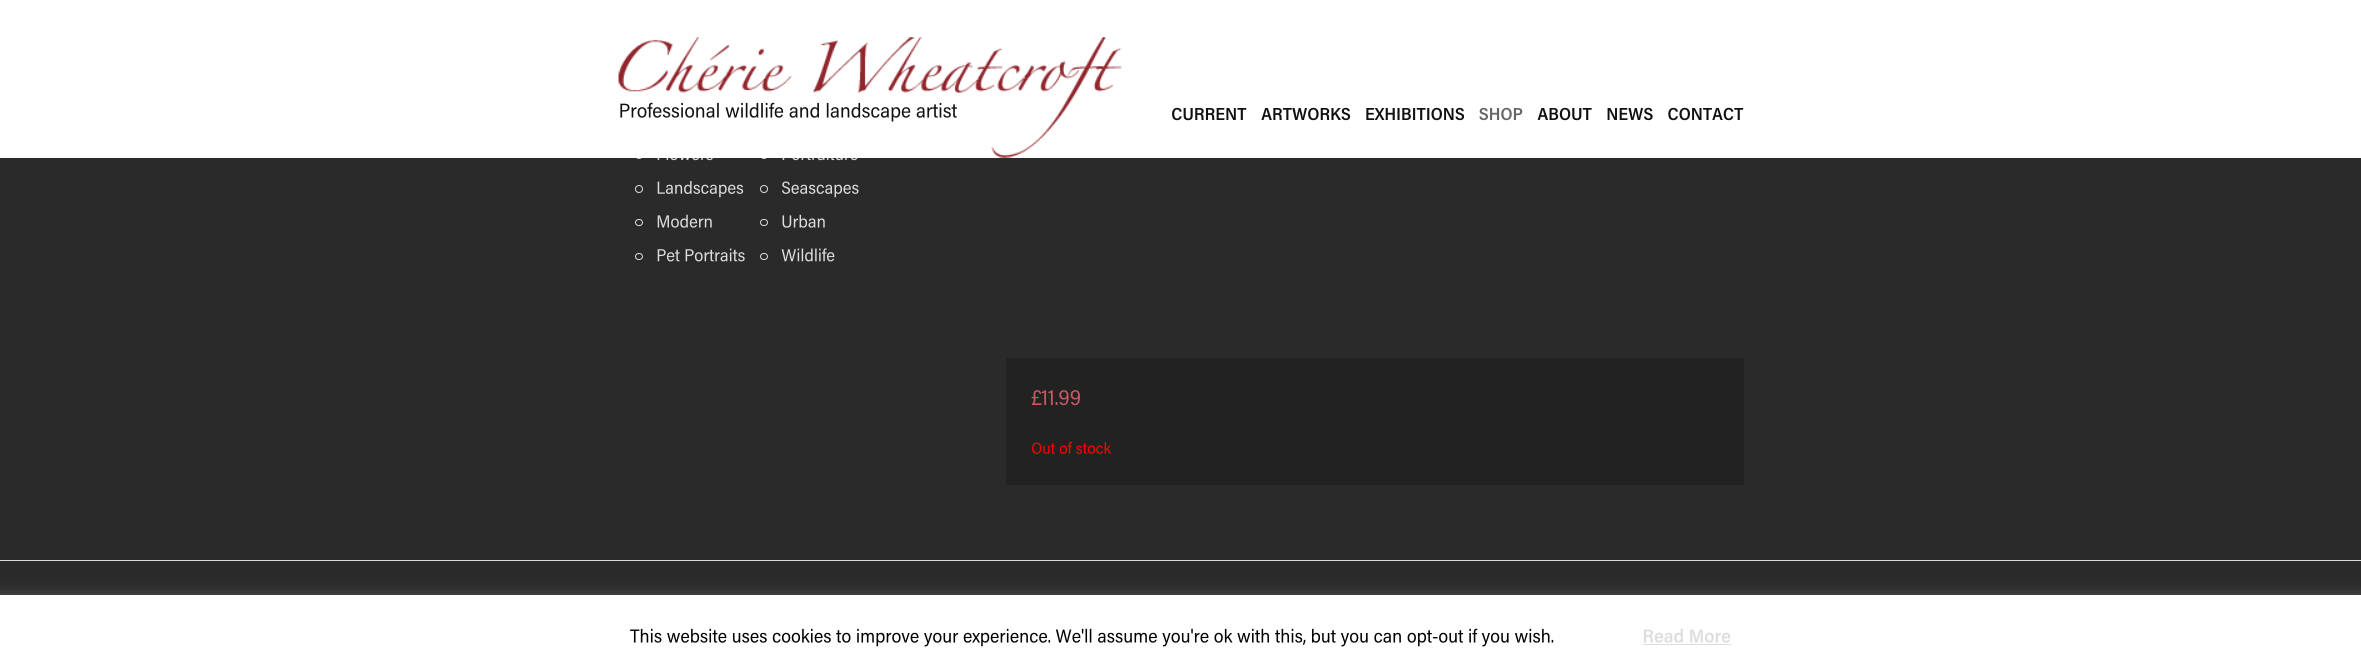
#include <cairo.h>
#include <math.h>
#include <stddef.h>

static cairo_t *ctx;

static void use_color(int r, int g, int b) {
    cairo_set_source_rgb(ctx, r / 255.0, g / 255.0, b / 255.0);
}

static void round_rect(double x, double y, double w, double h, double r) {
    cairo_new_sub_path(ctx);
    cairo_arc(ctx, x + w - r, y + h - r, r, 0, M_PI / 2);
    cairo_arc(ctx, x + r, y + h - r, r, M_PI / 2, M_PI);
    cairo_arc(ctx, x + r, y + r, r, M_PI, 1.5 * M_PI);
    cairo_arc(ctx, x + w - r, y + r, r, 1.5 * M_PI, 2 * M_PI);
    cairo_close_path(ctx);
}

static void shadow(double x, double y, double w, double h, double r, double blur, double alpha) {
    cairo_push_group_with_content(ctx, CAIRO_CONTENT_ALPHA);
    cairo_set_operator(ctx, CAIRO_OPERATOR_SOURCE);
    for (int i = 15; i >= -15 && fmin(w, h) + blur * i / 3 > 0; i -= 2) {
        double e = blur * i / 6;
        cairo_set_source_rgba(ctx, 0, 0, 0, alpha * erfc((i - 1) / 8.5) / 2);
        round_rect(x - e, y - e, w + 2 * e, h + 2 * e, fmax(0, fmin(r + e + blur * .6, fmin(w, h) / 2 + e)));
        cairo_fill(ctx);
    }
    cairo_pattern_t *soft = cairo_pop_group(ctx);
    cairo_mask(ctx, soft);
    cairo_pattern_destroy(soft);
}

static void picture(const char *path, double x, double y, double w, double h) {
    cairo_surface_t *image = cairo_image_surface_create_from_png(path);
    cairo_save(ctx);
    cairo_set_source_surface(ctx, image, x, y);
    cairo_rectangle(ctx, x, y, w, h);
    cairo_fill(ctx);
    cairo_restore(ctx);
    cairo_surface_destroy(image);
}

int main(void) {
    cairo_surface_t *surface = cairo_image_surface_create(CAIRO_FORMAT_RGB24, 2361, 670);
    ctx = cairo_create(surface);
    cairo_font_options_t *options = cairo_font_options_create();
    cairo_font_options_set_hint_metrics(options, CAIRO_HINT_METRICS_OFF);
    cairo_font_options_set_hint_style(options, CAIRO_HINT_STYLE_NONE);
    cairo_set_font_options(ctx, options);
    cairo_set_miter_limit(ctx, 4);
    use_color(42, 42, 42);
    cairo_paint(ctx);
    cairo_arc(ctx, 639, 155, 3.5, 0, 2 * M_PI);
    use_color(221, 221, 221);
    cairo_set_line_width(ctx, 1);
    cairo_stroke(ctx);
    cairo_arc(ctx, 764, 155, 3.5, 0, 2 * M_PI);
    cairo_stroke(ctx);
    use_color(255, 255, 255);
    cairo_rectangle(ctx, 0, 0, 2361, 158);
    cairo_fill(ctx);
    picture("img1.png", 618, 37, 504, 121);
    picture("img2.png", 618, 37, 504, 121);
    picture("img3.png", 620, 102, 337, 20);
    picture("img4.png", 1172, 107, 75, 14);
    picture("img5.png", 1261, 107, 90, 14);
    picture("img6.png", 1366, 107, 99, 14);
    picture("img7.png", 1479, 107, 44, 14);
    picture("img8.png", 1537, 107, 55, 14);
    picture("img9.png", 1607, 107, 46, 14);
    picture("img10.png", 1668, 107, 76, 14);
    use_color(221, 221, 221);
    cairo_rectangle(ctx, 0, 560, 2361, 1);
    cairo_fill(ctx);
    picture("img11.png", 657, 158, 56, 3);
    picture("img12.png", 782, 158, 76, 3);
    cairo_arc(ctx, 639, 189, 3.5, 0, 2 * M_PI);
    cairo_stroke(ctx);
    picture("img13.png", 657, 181, 87, 17);
    cairo_arc(ctx, 764, 189, 3.5, 0, 2 * M_PI);
    cairo_stroke(ctx);
    picture("img14.png", 781, 181, 78, 17);
    round_rect(635.5, 219.5, 7, 6, 3);
    cairo_stroke(ctx);
    picture("img15.png", 657, 214, 55, 14);
    round_rect(760.5, 219.5, 7, 6, 3);
    cairo_stroke(ctx);
    picture("img16.png", 782, 214, 43, 14);
    round_rect(635.5, 253.5, 7, 6, 3);
    cairo_stroke(ctx);
    picture("img17.png", 657, 248, 88, 14);
    round_rect(760.5, 253.5, 7, 6, 3);
    cairo_stroke(ctx);
    picture("img18.png", 781, 248, 54, 14);
    use_color(34, 34, 34);
    cairo_rectangle(ctx, 1006, 358, 738, 127);
    cairo_fill(ctx);
    picture("img19.png", 1031, 390, 11, 15);
    picture("img20.png", 1041, 390, 39, 16);
    picture("img21.png", 1032, 441, 80, 13);
    use_color(172, 171, 171);
    shadow(0, 594, 2361, 75, 0, 6, 0.3);
    use_color(255, 255, 255);
    cairo_rectangle(ctx, 0, 595, 2361, 75);
    cairo_fill(ctx);
    picture("img22.png", 630, 628, 924, 19);
    picture("img23.png", 1644, 628, 87, 15);
    use_color(221, 221, 221);
    cairo_rectangle(ctx, 1643, 644, 88, 1);
    cairo_fill(ctx);
    cairo_surface_write_to_png(surface, "result.png");
    cairo_font_options_destroy(options);
    cairo_destroy(ctx);
    cairo_surface_destroy(surface);
    return 0;
}
